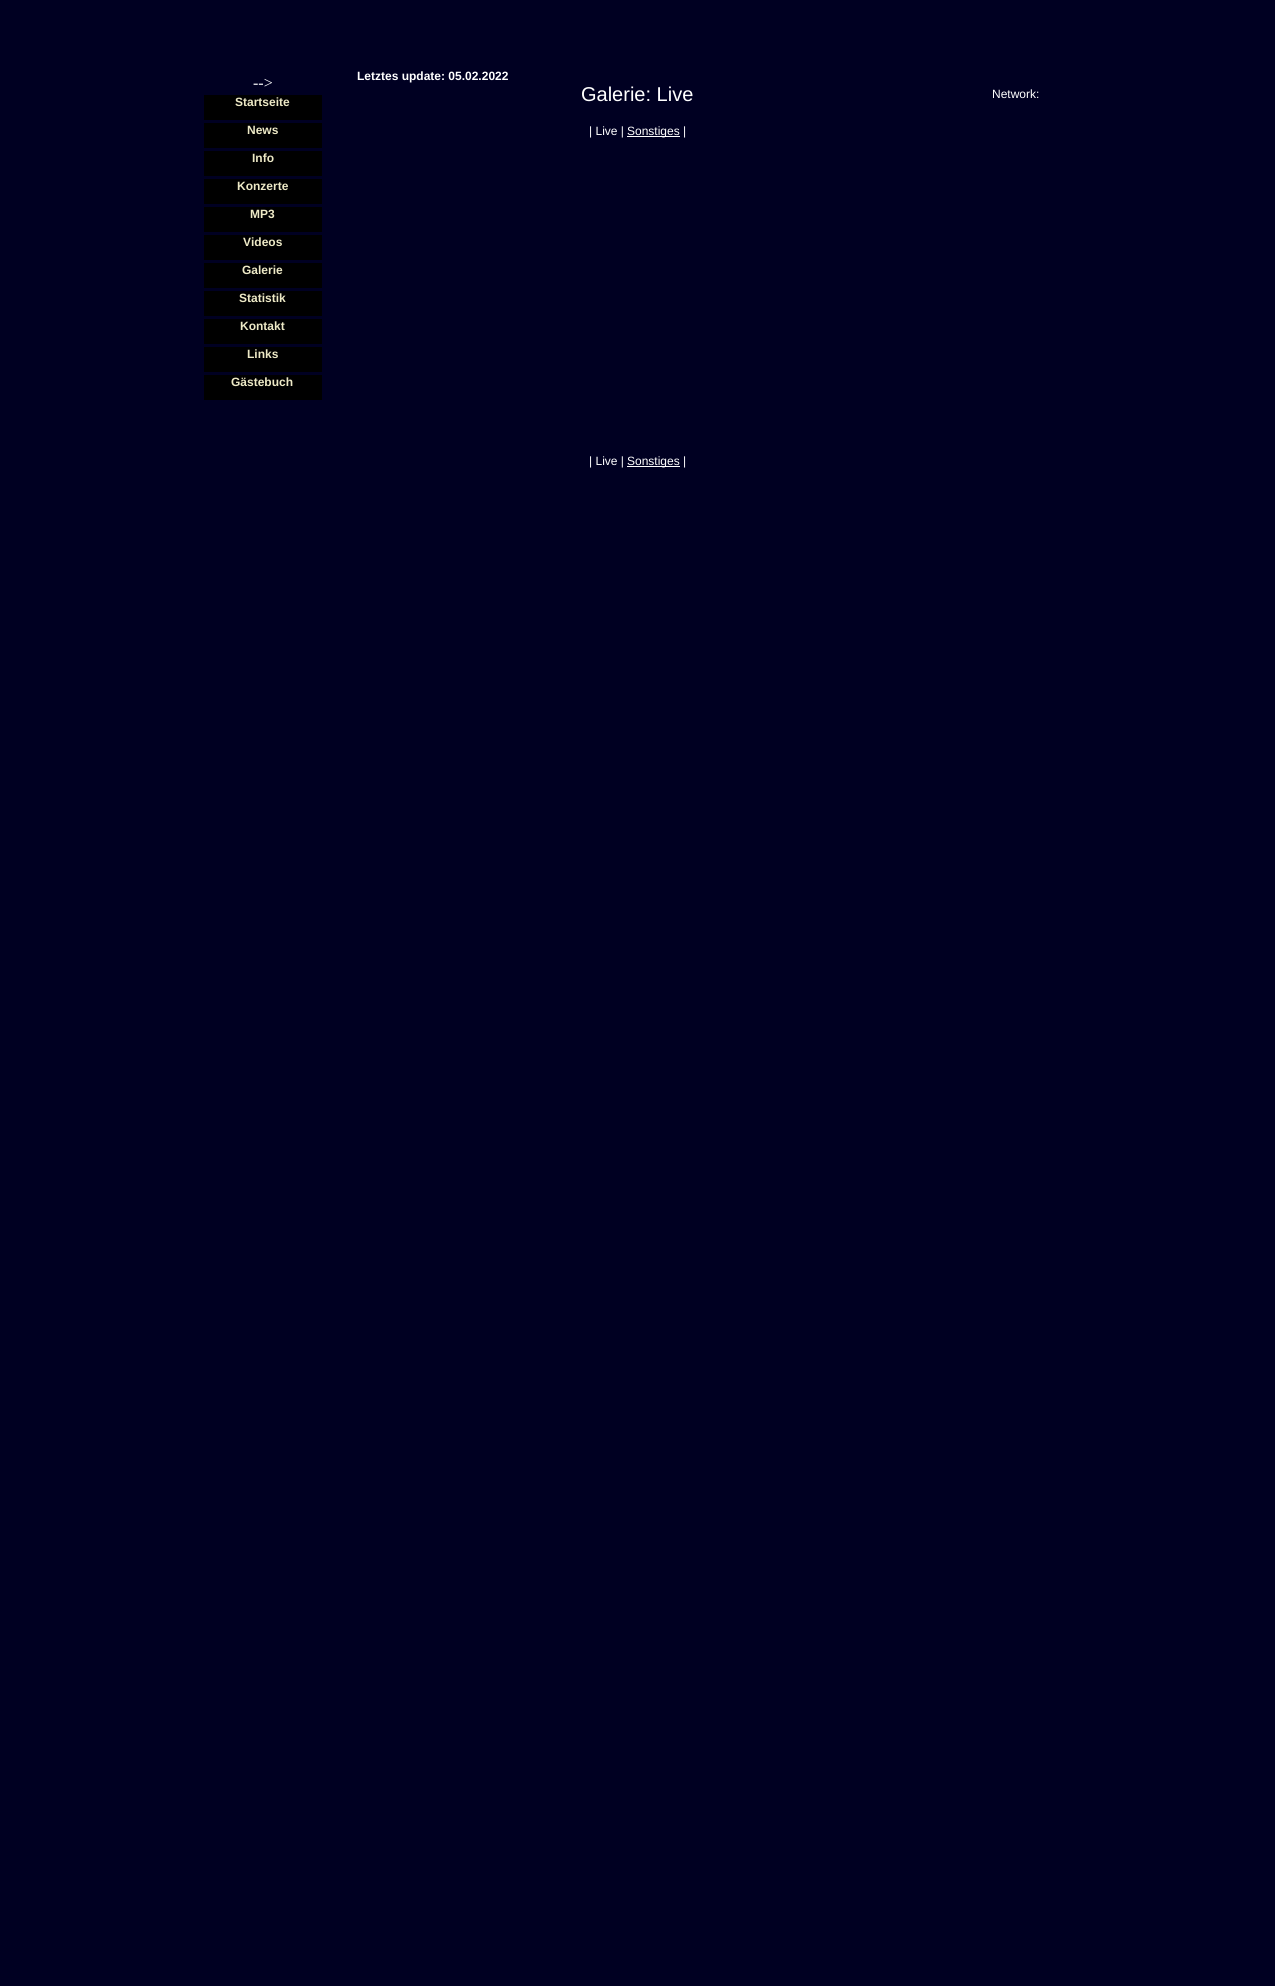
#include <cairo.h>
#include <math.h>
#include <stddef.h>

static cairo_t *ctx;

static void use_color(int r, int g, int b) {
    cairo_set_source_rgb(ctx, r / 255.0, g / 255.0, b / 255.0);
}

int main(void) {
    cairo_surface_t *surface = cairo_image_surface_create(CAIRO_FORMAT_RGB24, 1275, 1986);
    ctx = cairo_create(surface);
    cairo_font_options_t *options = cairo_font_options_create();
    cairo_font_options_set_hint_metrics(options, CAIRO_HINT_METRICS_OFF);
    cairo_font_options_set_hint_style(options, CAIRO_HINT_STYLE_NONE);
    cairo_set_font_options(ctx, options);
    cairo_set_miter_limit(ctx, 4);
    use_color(0, 0, 34);
    cairo_paint(ctx);
    cairo_select_font_face(ctx, "Liberation Serif", CAIRO_FONT_SLANT_NORMAL, CAIRO_FONT_WEIGHT_NORMAL);
    cairo_set_font_size(ctx, 16);
    use_color(255, 255, 255);
    cairo_move_to(ctx, 253, 88);
    cairo_show_text(ctx, "-->");
    use_color(0, 0, 0);
    cairo_rectangle(ctx, 204, 95, 118, 25);
    cairo_fill(ctx);
    cairo_select_font_face(ctx, "Liberation Sans", CAIRO_FONT_SLANT_NORMAL, CAIRO_FONT_WEIGHT_BOLD);
    cairo_set_font_size(ctx, 12);
    use_color(237, 233, 198);
    cairo_move_to(ctx, 235, 106);
    cairo_show_text(ctx, "Startseite");
    use_color(0, 0, 0);
    cairo_rectangle(ctx, 204, 123, 118, 25);
    cairo_fill(ctx);
    use_color(237, 233, 198);
    cairo_move_to(ctx, 247, 134);
    cairo_show_text(ctx, "News");
    use_color(0, 0, 0);
    cairo_rectangle(ctx, 204, 151, 118, 25);
    cairo_fill(ctx);
    use_color(237, 233, 198);
    cairo_move_to(ctx, 252, 162);
    cairo_show_text(ctx, "Info");
    use_color(0, 0, 0);
    cairo_rectangle(ctx, 204, 179, 118, 25);
    cairo_fill(ctx);
    use_color(237, 233, 198);
    cairo_move_to(ctx, 237, 190);
    cairo_show_text(ctx, "Konzerte");
    use_color(0, 0, 0);
    cairo_rectangle(ctx, 204, 207, 118, 25);
    cairo_fill(ctx);
    use_color(237, 233, 198);
    cairo_move_to(ctx, 250, 218);
    cairo_show_text(ctx, "MP3");
    use_color(0, 0, 0);
    cairo_rectangle(ctx, 204, 235, 118, 25);
    cairo_fill(ctx);
    use_color(237, 233, 198);
    cairo_move_to(ctx, 243, 246);
    cairo_show_text(ctx, "Videos");
    use_color(0, 0, 0);
    cairo_rectangle(ctx, 204, 263, 118, 25);
    cairo_fill(ctx);
    use_color(237, 233, 198);
    cairo_move_to(ctx, 242, 274);
    cairo_show_text(ctx, "Galerie");
    use_color(0, 0, 0);
    cairo_rectangle(ctx, 204, 291, 118, 25);
    cairo_fill(ctx);
    use_color(237, 233, 198);
    cairo_move_to(ctx, 239, 302);
    cairo_show_text(ctx, "Statistik");
    use_color(0, 0, 0);
    cairo_rectangle(ctx, 204, 319, 118, 25);
    cairo_fill(ctx);
    use_color(237, 233, 198);
    cairo_move_to(ctx, 240, 330);
    cairo_show_text(ctx, "Kontakt");
    use_color(0, 0, 0);
    cairo_rectangle(ctx, 204, 347, 118, 25);
    cairo_fill(ctx);
    use_color(237, 233, 198);
    cairo_move_to(ctx, 247, 358);
    cairo_show_text(ctx, "Links");
    use_color(0, 0, 0);
    cairo_rectangle(ctx, 204, 375, 118, 25);
    cairo_fill(ctx);
    use_color(237, 233, 198);
    cairo_move_to(ctx, 231, 386);
    cairo_show_text(ctx, "Gästebuch");
    use_color(255, 255, 255);
    cairo_move_to(ctx, 357, 80);
    cairo_show_text(ctx, "Letztes update: 05.02.2022");
    cairo_select_font_face(ctx, "Liberation Sans", CAIRO_FONT_SLANT_NORMAL, CAIRO_FONT_WEIGHT_NORMAL);
    cairo_set_font_size(ctx, 20);
    cairo_move_to(ctx, 581, 101);
    cairo_show_text(ctx, "Galerie: Live");
    cairo_set_font_size(ctx, 12);
    cairo_move_to(ctx, 589, 135);
    cairo_show_text(ctx, "| Live |");
    cairo_rectangle(ctx, 627, 136, 53, 1);
    cairo_fill(ctx);
    cairo_move_to(ctx, 627, 135);
    cairo_show_text(ctx, "Sonstiges |");
    cairo_move_to(ctx, 589, 465);
    cairo_show_text(ctx, "| Live |");
    cairo_rectangle(ctx, 627, 466, 53, 1);
    cairo_fill(ctx);
    cairo_move_to(ctx, 627, 465);
    cairo_show_text(ctx, "Sonstiges |");
    cairo_move_to(ctx, 992, 98);
    cairo_show_text(ctx, "Network:");
    cairo_surface_write_to_png(surface, "result.png");
    cairo_font_options_destroy(options);
    cairo_destroy(ctx);
    cairo_surface_destroy(surface);
    return 0;
}
